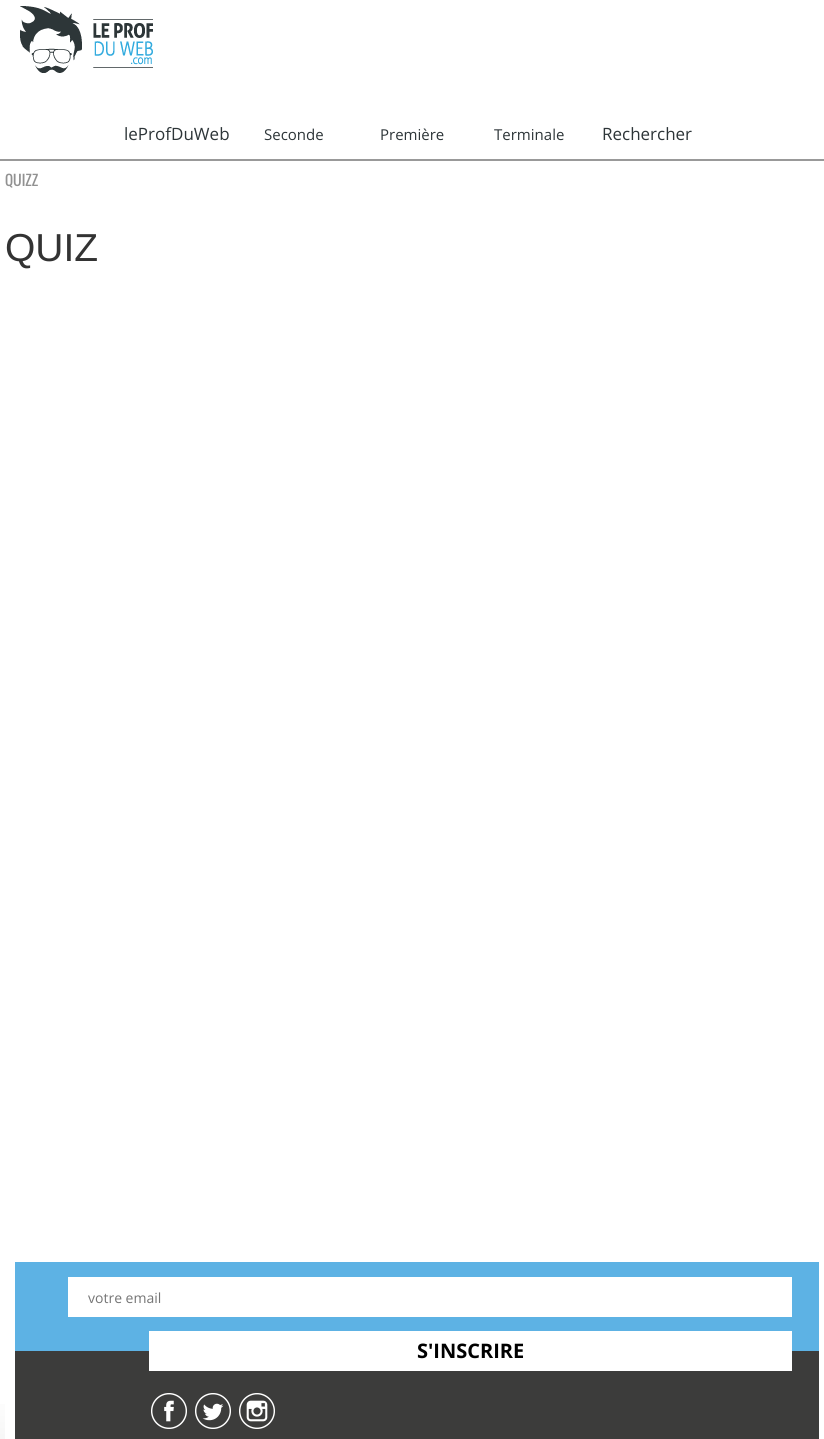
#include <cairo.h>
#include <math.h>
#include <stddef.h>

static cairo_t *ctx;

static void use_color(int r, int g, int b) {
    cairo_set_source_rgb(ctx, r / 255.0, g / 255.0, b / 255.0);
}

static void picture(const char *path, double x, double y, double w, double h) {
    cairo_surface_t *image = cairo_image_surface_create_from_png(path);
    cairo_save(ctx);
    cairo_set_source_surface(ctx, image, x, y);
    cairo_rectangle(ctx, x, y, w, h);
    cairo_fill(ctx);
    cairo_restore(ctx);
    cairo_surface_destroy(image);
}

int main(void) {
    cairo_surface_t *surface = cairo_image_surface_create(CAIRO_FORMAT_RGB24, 824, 1439);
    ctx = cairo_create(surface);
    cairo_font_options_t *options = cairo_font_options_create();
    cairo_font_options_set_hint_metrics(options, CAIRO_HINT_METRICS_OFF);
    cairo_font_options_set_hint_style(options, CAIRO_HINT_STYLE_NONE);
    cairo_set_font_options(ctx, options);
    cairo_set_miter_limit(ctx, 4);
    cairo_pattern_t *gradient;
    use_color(255, 255, 255);
    cairo_paint(ctx);
    gradient = cairo_pattern_create_linear(412, 0, 412, 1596);
    cairo_pattern_add_color_stop_rgba(gradient, 0.87, 1, 1, 1, 1);
    cairo_pattern_add_color_stop_rgba(gradient, 1, 0.867, 0.867, 0.867, 1);
    cairo_set_source(ctx, gradient);
    cairo_pattern_destroy(gradient);
    cairo_rectangle(ctx, 0, 1404, 5, 35);
    cairo_fill(ctx);
    use_color(153, 153, 153);
    cairo_rectangle(ctx, 0, 159, 824, 2);
    cairo_fill(ctx);
    picture("img1.png", 20, 6, 133, 67);
    cairo_select_font_face(ctx, "Open Sans", CAIRO_FONT_SLANT_NORMAL, CAIRO_FONT_WEIGHT_NORMAL);
    cairo_set_font_size(ctx, 17);
    use_color(45, 53, 56);
    cairo_move_to(ctx, 124, 140);
    cairo_show_text(ctx, "leProfDuWeb");
    cairo_set_font_size(ctx, 15);
    cairo_move_to(ctx, 264, 140);
    cairo_show_text(ctx, "Seconde");
    cairo_move_to(ctx, 380, 140);
    cairo_show_text(ctx, "Première");
    cairo_move_to(ctx, 494, 140);
    cairo_show_text(ctx, "Terminale");
    cairo_set_font_size(ctx, 17);
    cairo_move_to(ctx, 602, 140);
    cairo_show_text(ctx, "Rechercher");
    cairo_select_font_face(ctx, "Oswald", CAIRO_FONT_SLANT_NORMAL, CAIRO_FONT_WEIGHT_NORMAL);
    cairo_set_font_size(ctx, 14);
    use_color(145, 145, 145);
    cairo_move_to(ctx, 5, 186);
    cairo_show_text(ctx, "QUIZZ");
    cairo_select_font_face(ctx, "Liberation Sans", CAIRO_FONT_SLANT_NORMAL, CAIRO_FONT_WEIGHT_NORMAL);
    cairo_set_font_size(ctx, 39);
    use_color(51, 51, 51);
    cairo_move_to(ctx, 5, 261);
    cairo_show_text(ctx, "QUIZ");
    use_color(93, 178, 228);
    cairo_rectangle(ctx, 15, 1262, 804, 89);
    cairo_fill(ctx);
    use_color(255, 255, 255);
    cairo_rectangle(ctx, 68, 1277, 724, 40);
    cairo_fill(ctx);
    cairo_select_font_face(ctx, "Open Sans", CAIRO_FONT_SLANT_NORMAL, CAIRO_FONT_WEIGHT_NORMAL);
    cairo_set_font_size(ctx, 14);
    use_color(117, 117, 117);
    cairo_move_to(ctx, 88, 1303);
    cairo_show_text(ctx, "votre email");
    use_color(60, 60, 59);
    cairo_rectangle(ctx, 15, 1351, 804, 88);
    cairo_fill(ctx);
    use_color(255, 255, 255);
    cairo_rectangle(ctx, 149, 1331, 643, 40);
    cairo_fill(ctx);
    cairo_select_font_face(ctx, "Open Sans", CAIRO_FONT_SLANT_NORMAL, CAIRO_FONT_WEIGHT_BOLD);
    cairo_set_font_size(ctx, 20);
    use_color(0, 0, 0);
    cairo_move_to(ctx, 417, 1358);
    cairo_show_text(ctx, "S'INSCRIRE");
    picture("img2.png", 151, 1393, 36, 36);
    picture("img3.png", 195, 1393, 36, 36);
    picture("img4.png", 239, 1393, 36, 36);
    cairo_surface_write_to_png(surface, "result.png");
    cairo_font_options_destroy(options);
    cairo_destroy(ctx);
    cairo_surface_destroy(surface);
    return 0;
}
